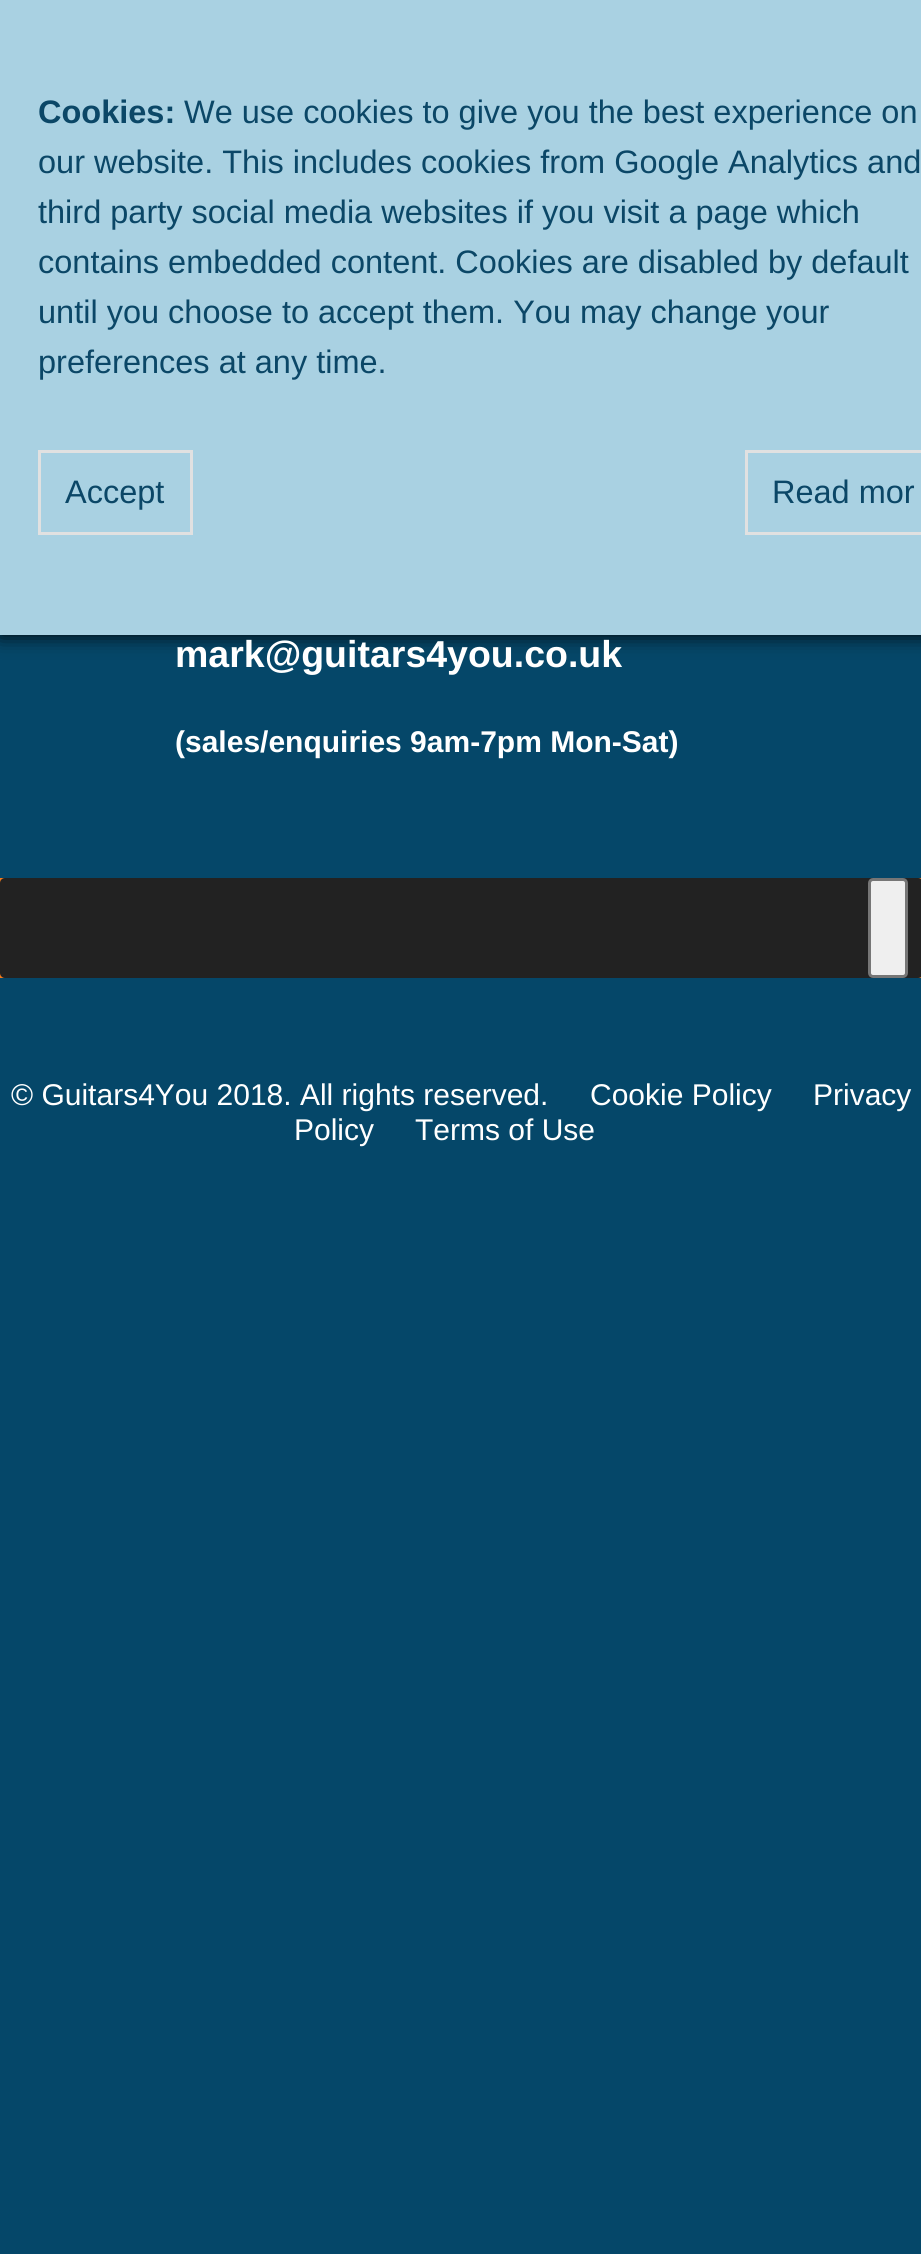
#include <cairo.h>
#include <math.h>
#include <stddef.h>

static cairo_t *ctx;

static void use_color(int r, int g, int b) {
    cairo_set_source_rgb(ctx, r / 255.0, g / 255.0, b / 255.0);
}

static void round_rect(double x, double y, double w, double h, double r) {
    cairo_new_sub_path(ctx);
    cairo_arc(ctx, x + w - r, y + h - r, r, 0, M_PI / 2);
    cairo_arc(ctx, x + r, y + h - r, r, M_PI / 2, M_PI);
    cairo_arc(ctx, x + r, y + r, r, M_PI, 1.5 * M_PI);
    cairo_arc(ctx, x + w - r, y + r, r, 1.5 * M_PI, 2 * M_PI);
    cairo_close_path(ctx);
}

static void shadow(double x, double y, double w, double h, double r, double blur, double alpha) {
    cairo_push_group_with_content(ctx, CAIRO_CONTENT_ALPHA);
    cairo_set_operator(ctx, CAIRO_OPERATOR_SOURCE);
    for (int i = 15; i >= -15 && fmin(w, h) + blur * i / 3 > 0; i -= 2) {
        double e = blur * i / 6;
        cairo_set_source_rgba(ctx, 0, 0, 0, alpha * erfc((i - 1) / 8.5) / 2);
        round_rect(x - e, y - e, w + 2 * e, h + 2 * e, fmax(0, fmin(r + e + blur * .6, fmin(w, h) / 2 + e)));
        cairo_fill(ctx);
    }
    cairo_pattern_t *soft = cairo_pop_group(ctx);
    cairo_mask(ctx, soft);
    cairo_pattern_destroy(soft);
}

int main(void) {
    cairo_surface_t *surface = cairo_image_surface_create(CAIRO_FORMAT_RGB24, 921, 2254);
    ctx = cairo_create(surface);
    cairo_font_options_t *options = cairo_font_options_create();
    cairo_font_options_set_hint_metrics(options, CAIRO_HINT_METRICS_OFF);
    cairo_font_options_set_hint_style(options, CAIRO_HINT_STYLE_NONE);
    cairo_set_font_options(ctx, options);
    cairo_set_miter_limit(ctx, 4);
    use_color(5, 71, 105);
    cairo_paint(ctx);
    use_color(0, 0, 0);
    shadow(0, 0, 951, 635, 0, 10, 1);
    use_color(169, 209, 226);
    cairo_rectangle(ctx, 0, 0, 921, 635);
    cairo_fill(ctx);
    cairo_select_font_face(ctx, "Liberation Sans", CAIRO_FONT_SLANT_NORMAL, CAIRO_FONT_WEIGHT_BOLD);
    cairo_set_font_size(ctx, 32.5);
    use_color(11, 71, 103);
    cairo_move_to(ctx, 38, 123);
    cairo_show_text(ctx, "Cookies:");
    cairo_select_font_face(ctx, "Liberation Sans", CAIRO_FONT_SLANT_NORMAL, CAIRO_FONT_WEIGHT_NORMAL);
    cairo_move_to(ctx, 184, 123);
    cairo_show_text(ctx, "We use cookies to give you the best experience on");
    cairo_move_to(ctx, 38, 173);
    cairo_show_text(ctx, "our website. This includes cookies from Google Analytics and");
    cairo_move_to(ctx, 38, 223);
    cairo_show_text(ctx, "third party social media websites if you visit a page which");
    cairo_move_to(ctx, 38, 273);
    cairo_show_text(ctx, "contains embedded content. Cookies are disabled by default");
    cairo_move_to(ctx, 38, 323);
    cairo_show_text(ctx, "until you choose to accept them. You may change your");
    cairo_move_to(ctx, 38, 373);
    cairo_show_text(ctx, "preferences at any time.");
    cairo_rectangle(ctx, 39.5, 451.5, 152, 82);
    use_color(225, 225, 225);
    cairo_set_line_width(ctx, 3);
    cairo_stroke(ctx);
    use_color(11, 71, 103);
    cairo_move_to(ctx, 65, 503);
    cairo_show_text(ctx, "Accept");
    cairo_rectangle(ctx, 746.5, 451.5, 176, 82);
    use_color(225, 225, 225);
    cairo_stroke(ctx);
    use_color(11, 71, 103);
    cairo_move_to(ctx, 772, 503);
    cairo_show_text(ctx, "Read mor");
    cairo_select_font_face(ctx, "Liberation Sans", CAIRO_FONT_SLANT_NORMAL, CAIRO_FONT_WEIGHT_BOLD);
    cairo_set_font_size(ctx, 37.5);
    use_color(255, 255, 255);
    cairo_move_to(ctx, 175, 667);
    cairo_show_text(ctx, "mark@guitars4you.co.uk");
    cairo_set_font_size(ctx, 30);
    cairo_move_to(ctx, 175, 752);
    cairo_show_text(ctx, "(sales/enquiries 9am-7pm Mon-Sat)");
    use_color(246, 123, 28);
    cairo_rectangle(ctx, 0, 878, 921, 100);
    cairo_fill(ctx);
    use_color(34, 34, 34);
    round_rect(0, 878, 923, 100, 5);
    cairo_fill(ctx);
    use_color(239, 239, 239);
    round_rect(869.5, 879.5, 37, 97, 3.5);
    cairo_fill_preserve(ctx);
    use_color(118, 118, 118);
    cairo_stroke(ctx);
    cairo_select_font_face(ctx, "Liberation Sans", CAIRO_FONT_SLANT_NORMAL, CAIRO_FONT_WEIGHT_NORMAL);
    use_color(255, 255, 255);
    cairo_move_to(ctx, 11, 1105);
    cairo_show_text(ctx, "© Guitars4You 2018. All rights reserved.");
    cairo_move_to(ctx, 590, 1105);
    cairo_show_text(ctx, "Cookie Policy");
    cairo_move_to(ctx, 813, 1105);
    cairo_show_text(ctx, "Privacy");
    cairo_move_to(ctx, 294, 1140);
    cairo_show_text(ctx, "Policy");
    cairo_move_to(ctx, 415, 1140);
    cairo_show_text(ctx, "Terms of Use");
    cairo_surface_write_to_png(surface, "result.png");
    cairo_font_options_destroy(options);
    cairo_destroy(ctx);
    cairo_surface_destroy(surface);
    return 0;
}
